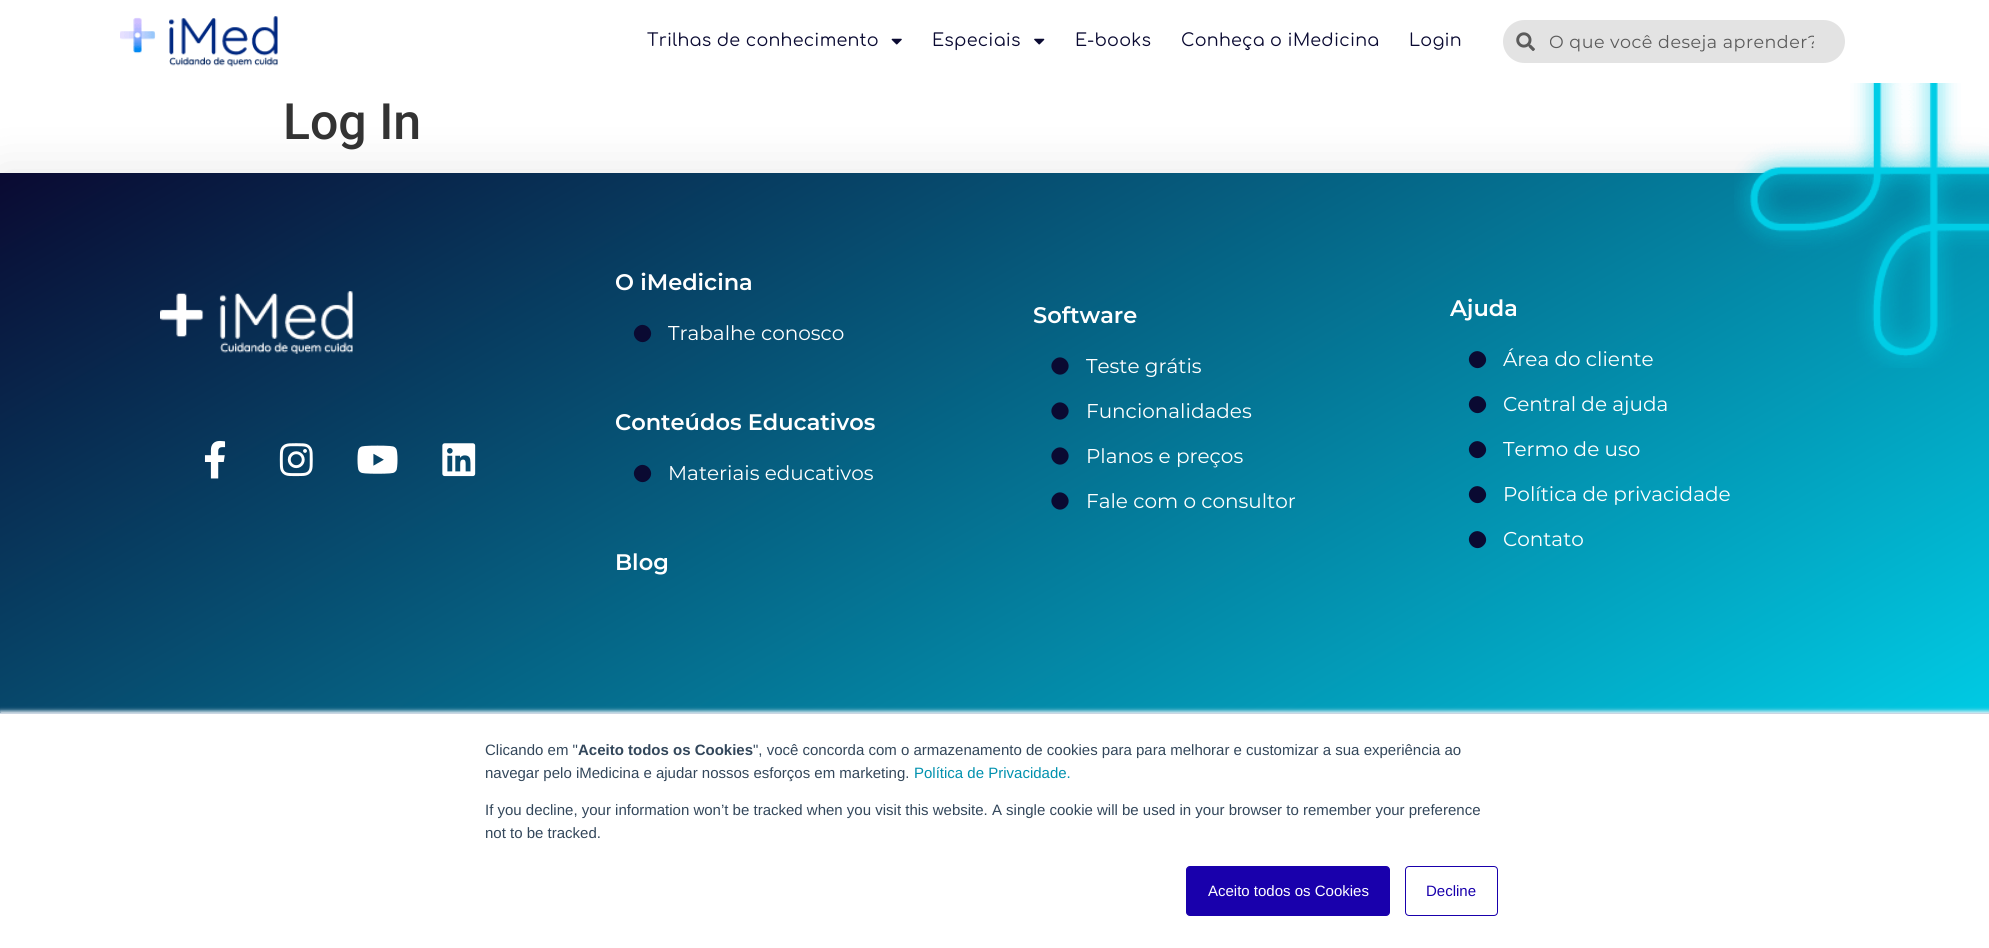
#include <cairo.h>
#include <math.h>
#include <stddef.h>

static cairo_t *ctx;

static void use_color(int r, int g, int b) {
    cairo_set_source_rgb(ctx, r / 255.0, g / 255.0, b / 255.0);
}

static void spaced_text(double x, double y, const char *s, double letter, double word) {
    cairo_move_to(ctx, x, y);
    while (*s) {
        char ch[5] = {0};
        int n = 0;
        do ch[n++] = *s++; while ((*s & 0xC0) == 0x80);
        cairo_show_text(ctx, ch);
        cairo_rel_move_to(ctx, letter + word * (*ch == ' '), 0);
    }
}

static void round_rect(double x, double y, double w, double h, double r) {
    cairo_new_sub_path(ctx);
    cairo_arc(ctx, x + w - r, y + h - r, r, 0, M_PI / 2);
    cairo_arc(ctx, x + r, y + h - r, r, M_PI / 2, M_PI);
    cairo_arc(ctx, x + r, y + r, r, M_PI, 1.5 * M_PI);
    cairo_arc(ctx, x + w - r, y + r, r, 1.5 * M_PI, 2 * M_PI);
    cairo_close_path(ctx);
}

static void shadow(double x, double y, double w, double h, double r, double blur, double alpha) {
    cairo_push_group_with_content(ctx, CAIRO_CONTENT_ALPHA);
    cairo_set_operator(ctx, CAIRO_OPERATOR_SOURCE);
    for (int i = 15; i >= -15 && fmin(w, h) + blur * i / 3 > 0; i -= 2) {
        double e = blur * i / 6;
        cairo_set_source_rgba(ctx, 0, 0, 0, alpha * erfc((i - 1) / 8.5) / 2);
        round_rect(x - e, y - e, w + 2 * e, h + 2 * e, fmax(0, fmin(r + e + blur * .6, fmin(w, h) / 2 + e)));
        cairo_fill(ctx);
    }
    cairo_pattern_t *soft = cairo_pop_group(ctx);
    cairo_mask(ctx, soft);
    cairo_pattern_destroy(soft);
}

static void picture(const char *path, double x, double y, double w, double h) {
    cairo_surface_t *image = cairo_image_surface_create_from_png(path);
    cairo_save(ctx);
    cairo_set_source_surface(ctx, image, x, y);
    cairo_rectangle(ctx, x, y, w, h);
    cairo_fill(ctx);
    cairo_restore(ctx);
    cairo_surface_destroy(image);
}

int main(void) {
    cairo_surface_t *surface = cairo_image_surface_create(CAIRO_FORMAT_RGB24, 1989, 948);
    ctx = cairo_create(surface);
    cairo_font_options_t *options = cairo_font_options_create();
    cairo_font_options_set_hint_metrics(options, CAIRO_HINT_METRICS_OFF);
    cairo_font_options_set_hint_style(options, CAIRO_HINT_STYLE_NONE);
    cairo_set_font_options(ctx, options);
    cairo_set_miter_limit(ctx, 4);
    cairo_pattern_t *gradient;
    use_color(255, 255, 255);
    cairo_paint(ctx);
    picture("img1.png", 120, 16, 158, 51);
    cairo_select_font_face(ctx, "Comfortaa", CAIRO_FONT_SLANT_NORMAL, CAIRO_FONT_WEIGHT_NORMAL);
    cairo_set_font_size(ctx, 17.5);
    use_color(10, 10, 50);
    spaced_text(647, 46, "Trilhas de conhecimento", 0.25, 0);
    picture("img2.png", 891, 38, 11, 7);
    spaced_text(932, 46, "Especiais", 0.25, 0);
    picture("img3.png", 1034, 38, 11, 7);
    spaced_text(1075, 46, "E-books", 0.25, 0);
    spaced_text(1181, 46, "Conheça o iMedicina", 0.25, 0);
    spaced_text(1409, 46, "Login", 0.25, 0);
    use_color(227, 227, 227);
    round_rect(1503, 20, 342, 43, 21.5);
    cairo_fill(ctx);
    picture("img4.png", 1516, 32, 19, 19);
    cairo_save(ctx);
    cairo_rectangle(ctx, 1550, 30, 264, 23);
    cairo_clip(ctx);
    cairo_select_font_face(ctx, "Montserrat", CAIRO_FONT_SLANT_NORMAL, CAIRO_FONT_WEIGHT_NORMAL);
    use_color(91, 91, 91);
    spaced_text(1549, 48, "O que você deseja aprender?", 0.5, 0);
    cairo_restore(ctx);
    cairo_select_font_face(ctx, "Roboto Medium", CAIRO_FONT_SLANT_NORMAL, CAIRO_FONT_WEIGHT_NORMAL);
    cairo_set_font_size(ctx, 50);
    use_color(51, 51, 51);
    cairo_move_to(ctx, 283, 139);
    cairo_show_text(ctx, "Log In");
    use_color(0, 0, 0);
    shadow(0, 173, 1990, 562, 0, 25, 0.1);
    gradient = cairo_pattern_create_linear(624, -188, 1366, 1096);
    cairo_pattern_add_color_stop_rgba(gradient, 0, 0.039, 0.039, 0.196, 1);
    cairo_pattern_add_color_stop_rgba(gradient, 1, 0, 0.804, 0.902, 1);
    cairo_set_source(ctx, gradient);
    cairo_pattern_destroy(gradient);
    cairo_rectangle(ctx, 0, 173, 1989, 540);
    cairo_fill(ctx);
    picture("img5.png", 160, 291, 193, 63);
    picture("img6.png", 204, 440, 22, 39);
    picture("img7.png", 279, 443, 34, 34);
    picture("img8.png", 357, 445, 41, 29);
    picture("img9.png", 442, 443, 34, 34);
    cairo_select_font_face(ctx, "Montserrat SemiBold", CAIRO_FONT_SLANT_NORMAL, CAIRO_FONT_WEIGHT_NORMAL);
    cairo_set_font_size(ctx, 22.5);
    use_color(255, 255, 255);
    cairo_move_to(ctx, 615, 290);
    cairo_show_text(ctx, "O iMedicina");
    use_color(10, 10, 50);
    cairo_new_path(ctx);
    cairo_move_to(ctx, 636.5, 327.5);
    cairo_curve_to(ctx, 644.5, 319.5, 656.5, 331.5, 648.5, 339.5);
    cairo_curve_to(ctx, 640.5, 347.5, 628.5, 335.5, 636.5, 327.5);
    cairo_close_path(ctx);
    cairo_fill(ctx);
    cairo_select_font_face(ctx, "Montserrat", CAIRO_FONT_SLANT_NORMAL, CAIRO_FONT_WEIGHT_NORMAL);
    cairo_set_font_size(ctx, 20);
    use_color(255, 255, 255);
    cairo_move_to(ctx, 668, 340);
    cairo_show_text(ctx, "Trabalhe conosco");
    cairo_select_font_face(ctx, "Montserrat SemiBold", CAIRO_FONT_SLANT_NORMAL, CAIRO_FONT_WEIGHT_NORMAL);
    cairo_set_font_size(ctx, 22.5);
    cairo_move_to(ctx, 615, 430);
    cairo_show_text(ctx, "Conteúdos Educativos");
    use_color(10, 10, 50);
    cairo_new_path(ctx);
    cairo_move_to(ctx, 636.5, 467.5);
    cairo_curve_to(ctx, 644.5, 459.5, 656.5, 471.5, 648.5, 479.5);
    cairo_curve_to(ctx, 640.5, 487.5, 628.5, 475.5, 636.5, 467.5);
    cairo_close_path(ctx);
    cairo_fill(ctx);
    cairo_select_font_face(ctx, "Montserrat", CAIRO_FONT_SLANT_NORMAL, CAIRO_FONT_WEIGHT_NORMAL);
    cairo_set_font_size(ctx, 20);
    use_color(255, 255, 255);
    cairo_move_to(ctx, 668, 480);
    cairo_show_text(ctx, "Materiais educativos");
    cairo_select_font_face(ctx, "Montserrat SemiBold", CAIRO_FONT_SLANT_NORMAL, CAIRO_FONT_WEIGHT_NORMAL);
    cairo_set_font_size(ctx, 22.5);
    cairo_move_to(ctx, 615, 570);
    cairo_show_text(ctx, "Blog");
    cairo_move_to(ctx, 1033, 323);
    cairo_show_text(ctx, "Software");
    use_color(10, 10, 50);
    cairo_new_path(ctx);
    cairo_move_to(ctx, 1054, 360);
    cairo_curve_to(ctx, 1062, 352, 1074, 364, 1066, 372);
    cairo_curve_to(ctx, 1058, 380, 1046, 368, 1054, 360);
    cairo_close_path(ctx);
    cairo_fill(ctx);
    cairo_select_font_face(ctx, "Montserrat", CAIRO_FONT_SLANT_NORMAL, CAIRO_FONT_WEIGHT_NORMAL);
    cairo_set_font_size(ctx, 20);
    use_color(255, 255, 255);
    cairo_move_to(ctx, 1086, 373);
    cairo_show_text(ctx, "Teste grátis");
    use_color(10, 10, 50);
    cairo_new_path(ctx);
    cairo_move_to(ctx, 1054, 405);
    cairo_curve_to(ctx, 1062, 397, 1074, 409, 1066, 417);
    cairo_curve_to(ctx, 1058, 425, 1046, 413, 1054, 405);
    cairo_close_path(ctx);
    cairo_fill(ctx);
    use_color(255, 255, 255);
    cairo_move_to(ctx, 1086, 418);
    cairo_show_text(ctx, "Funcionalidades");
    use_color(10, 10, 50);
    cairo_new_path(ctx);
    cairo_move_to(ctx, 1054, 450);
    cairo_curve_to(ctx, 1062, 442, 1074, 454, 1066, 462);
    cairo_curve_to(ctx, 1058, 470, 1046, 458, 1054, 450);
    cairo_close_path(ctx);
    cairo_fill(ctx);
    use_color(255, 255, 255);
    cairo_move_to(ctx, 1086, 463);
    cairo_show_text(ctx, "Planos e preços");
    use_color(10, 10, 50);
    cairo_new_path(ctx);
    cairo_move_to(ctx, 1054, 495);
    cairo_curve_to(ctx, 1062, 487, 1074, 499, 1066, 507);
    cairo_curve_to(ctx, 1058, 515, 1046, 503, 1054, 495);
    cairo_close_path(ctx);
    cairo_fill(ctx);
    use_color(255, 255, 255);
    cairo_move_to(ctx, 1086, 508);
    cairo_show_text(ctx, "Fale com o consultor");
    cairo_select_font_face(ctx, "Montserrat SemiBold", CAIRO_FONT_SLANT_NORMAL, CAIRO_FONT_WEIGHT_NORMAL);
    cairo_set_font_size(ctx, 22.5);
    cairo_move_to(ctx, 1450, 316);
    cairo_show_text(ctx, "Ajuda");
    picture("img10.png", 1734, 83, 255, 285);
    use_color(10, 10, 50);
    cairo_new_path(ctx);
    cairo_move_to(ctx, 1471.5, 353.5);
    cairo_curve_to(ctx, 1479.5, 346, 1491.5, 358, 1483.5, 365.5);
    cairo_curve_to(ctx, 1475.5, 373.5, 1463.5, 361.5, 1471.5, 353.5);
    cairo_close_path(ctx);
    cairo_fill(ctx);
    cairo_select_font_face(ctx, "Montserrat", CAIRO_FONT_SLANT_NORMAL, CAIRO_FONT_WEIGHT_NORMAL);
    cairo_set_font_size(ctx, 20);
    use_color(255, 255, 255);
    cairo_move_to(ctx, 1503, 366);
    cairo_show_text(ctx, "Área do cliente");
    use_color(10, 10, 50);
    cairo_new_path(ctx);
    cairo_move_to(ctx, 1471.5, 398.5);
    cairo_curve_to(ctx, 1479.5, 391, 1491.5, 403, 1483.5, 410.5);
    cairo_curve_to(ctx, 1475.5, 418.5, 1463.5, 406.5, 1471.5, 398.5);
    cairo_close_path(ctx);
    cairo_fill(ctx);
    use_color(255, 255, 255);
    cairo_move_to(ctx, 1503, 411);
    cairo_show_text(ctx, "Central de ajuda");
    use_color(10, 10, 50);
    cairo_new_path(ctx);
    cairo_move_to(ctx, 1471.5, 443.5);
    cairo_curve_to(ctx, 1479.5, 436, 1491.5, 448, 1483.5, 455.5);
    cairo_curve_to(ctx, 1475.5, 463.5, 1463.5, 451.5, 1471.5, 443.5);
    cairo_close_path(ctx);
    cairo_fill(ctx);
    use_color(255, 255, 255);
    cairo_move_to(ctx, 1503, 456);
    cairo_show_text(ctx, "Termo de uso");
    use_color(10, 10, 50);
    cairo_new_path(ctx);
    cairo_move_to(ctx, 1471.5, 488.5);
    cairo_curve_to(ctx, 1479.5, 481, 1491.5, 493, 1483.5, 500.5);
    cairo_curve_to(ctx, 1475.5, 508.5, 1463.5, 496.5, 1471.5, 488.5);
    cairo_close_path(ctx);
    cairo_fill(ctx);
    use_color(255, 255, 255);
    cairo_move_to(ctx, 1503, 501);
    cairo_show_text(ctx, "Política de privacidade");
    use_color(10, 10, 50);
    cairo_new_path(ctx);
    cairo_move_to(ctx, 1471.5, 533.5);
    cairo_curve_to(ctx, 1479.5, 526, 1491.5, 538, 1483.5, 545.5);
    cairo_curve_to(ctx, 1475.5, 553.5, 1463.5, 541.5, 1471.5, 533.5);
    cairo_close_path(ctx);
    cairo_fill(ctx);
    use_color(255, 255, 255);
    cairo_move_to(ctx, 1503, 546);
    cairo_show_text(ctx, "Contato");
    use_color(234, 240, 246);
    shadow(0, 711, 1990, 237, 0, 2, 1);
    use_color(255, 255, 255);
    cairo_rectangle(ctx, 0, 714, 1989, 234);
    cairo_fill(ctx);
    use_color(203, 214, 226);
    cairo_rectangle(ctx, 0, 713, 1989, 1);
    cairo_fill(ctx);
    cairo_select_font_face(ctx, "Liberation Sans", CAIRO_FONT_SLANT_NORMAL, CAIRO_FONT_WEIGHT_NORMAL);
    cairo_set_font_size(ctx, 15);
    use_color(51, 71, 91);
    cairo_move_to(ctx, 485, 755);
    cairo_show_text(ctx, "Clicando em \"");
    cairo_select_font_face(ctx, "Liberation Sans", CAIRO_FONT_SLANT_NORMAL, CAIRO_FONT_WEIGHT_BOLD);
    cairo_move_to(ctx, 578, 755);
    cairo_show_text(ctx, "Aceito todos os Cookies");
    cairo_select_font_face(ctx, "Liberation Sans", CAIRO_FONT_SLANT_NORMAL, CAIRO_FONT_WEIGHT_NORMAL);
    cairo_move_to(ctx, 753, 755);
    cairo_show_text(ctx, "\", você concorda com o armazenamento de cookies para para melhorar e customizar a sua experiência ao");
    cairo_move_to(ctx, 485, 778);
    cairo_show_text(ctx, "navegar pelo iMedicina e ajudar nossos esforços em marketing.");
    use_color(0, 145, 174);
    cairo_move_to(ctx, 914, 778);
    cairo_show_text(ctx, "Política de Privacidade.");
    use_color(51, 71, 91);
    cairo_move_to(ctx, 485, 815);
    cairo_show_text(ctx, "If you decline, your information won’t be tracked when you visit this website. A single cookie will be used in your browser to remember your preference");
    cairo_move_to(ctx, 485, 838);
    cairo_show_text(ctx, "not to be tracked.");
    use_color(25, 0, 172);
    round_rect(1186.5, 866.5, 203, 49, 3.5);
    cairo_fill_preserve(ctx);
    cairo_set_line_width(ctx, 1);
    cairo_stroke(ctx);
    use_color(255, 255, 255);
    cairo_move_to(ctx, 1208, 896);
    cairo_show_text(ctx, "Aceito todos os Cookies");
    round_rect(1405.5, 866.5, 92, 49, 3.5);
    use_color(25, 0, 172);
    cairo_stroke(ctx);
    cairo_move_to(ctx, 1426, 896);
    cairo_show_text(ctx, "Decline");
    cairo_surface_write_to_png(surface, "result.png");
    cairo_font_options_destroy(options);
    cairo_destroy(ctx);
    cairo_surface_destroy(surface);
    return 0;
}
